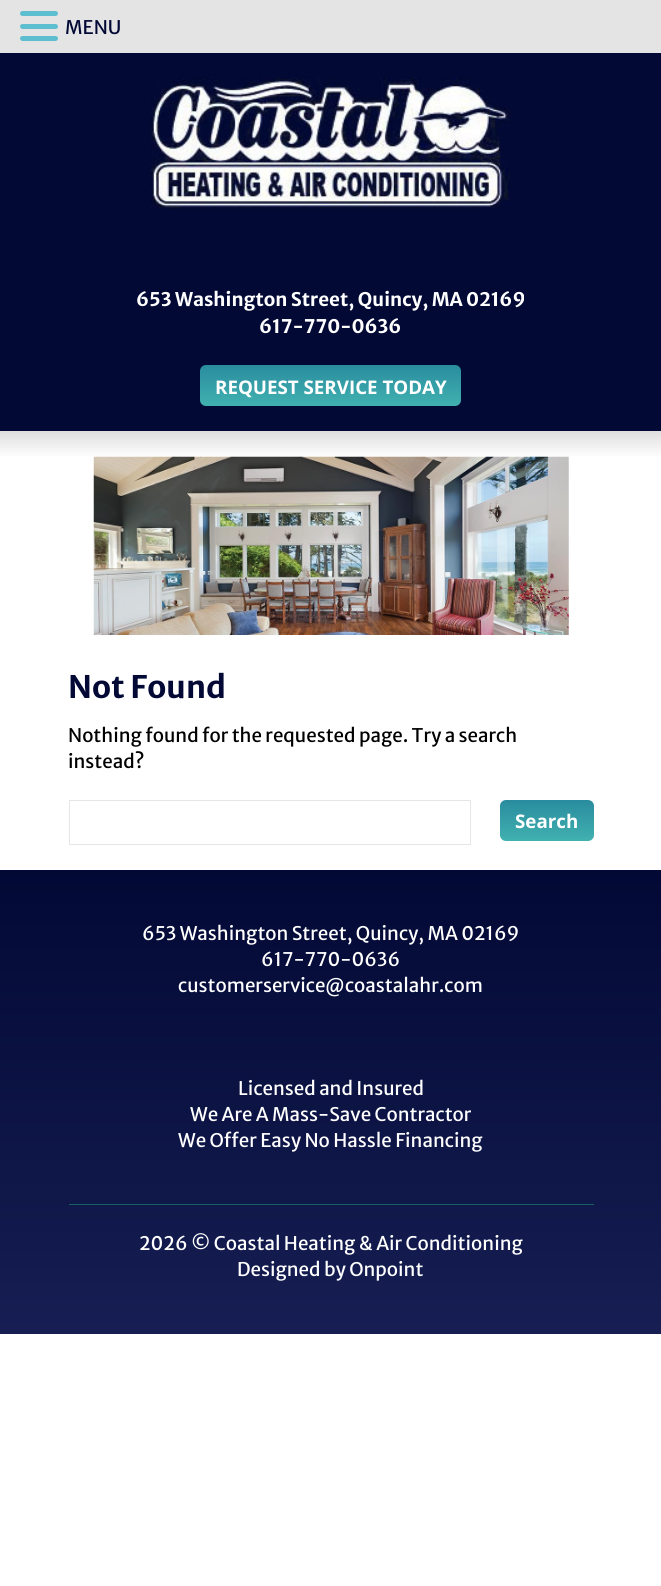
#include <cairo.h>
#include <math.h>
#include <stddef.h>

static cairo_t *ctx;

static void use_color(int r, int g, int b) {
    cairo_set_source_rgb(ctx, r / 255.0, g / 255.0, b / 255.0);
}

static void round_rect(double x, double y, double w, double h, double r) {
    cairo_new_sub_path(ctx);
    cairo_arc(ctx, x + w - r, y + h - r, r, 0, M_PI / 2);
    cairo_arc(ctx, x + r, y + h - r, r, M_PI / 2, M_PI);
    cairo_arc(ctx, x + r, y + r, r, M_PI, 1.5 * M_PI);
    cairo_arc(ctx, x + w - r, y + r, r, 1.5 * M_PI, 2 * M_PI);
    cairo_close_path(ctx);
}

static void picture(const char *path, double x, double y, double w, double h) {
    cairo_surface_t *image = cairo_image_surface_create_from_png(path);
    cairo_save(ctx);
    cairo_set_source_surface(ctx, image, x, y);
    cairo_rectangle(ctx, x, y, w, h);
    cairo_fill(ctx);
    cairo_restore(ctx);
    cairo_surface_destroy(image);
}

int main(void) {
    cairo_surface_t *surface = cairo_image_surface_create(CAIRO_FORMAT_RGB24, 661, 1586);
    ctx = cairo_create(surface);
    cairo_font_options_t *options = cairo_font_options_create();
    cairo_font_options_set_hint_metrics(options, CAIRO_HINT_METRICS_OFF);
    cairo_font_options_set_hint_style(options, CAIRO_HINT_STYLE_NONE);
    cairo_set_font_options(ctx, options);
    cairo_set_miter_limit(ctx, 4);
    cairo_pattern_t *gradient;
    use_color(255, 255, 255);
    cairo_paint(ctx);
    use_color(228, 228, 228);
    cairo_rectangle(ctx, 0, 0, 661, 53);
    cairo_fill(ctx);
    use_color(92, 190, 207);
    round_rect(20, 11, 38, 5, 2.5);
    cairo_fill(ctx);
    round_rect(20, 24, 38, 5, 2.5);
    cairo_fill(ctx);
    round_rect(20, 36, 38, 5, 2.5);
    cairo_fill(ctx);
    cairo_select_font_face(ctx, "Merriweather Sans", CAIRO_FONT_SLANT_NORMAL, CAIRO_FONT_WEIGHT_NORMAL);
    cairo_set_font_size(ctx, 18.75);
    use_color(2, 9, 53);
    cairo_move_to(ctx, 65, 34);
    cairo_show_text(ctx, "MENU");
    cairo_rectangle(ctx, 0, 53, 661, 378);
    cairo_fill(ctx);
    picture("img1.png", 151, 77, 359, 132);
    cairo_select_font_face(ctx, "Merriweather Sans", CAIRO_FONT_SLANT_NORMAL, CAIRO_FONT_WEIGHT_BOLD);
    use_color(255, 255, 255);
    cairo_move_to(ctx, 136, 306);
    cairo_show_text(ctx, "653 Washington Street, Quincy, MA 02169");
    cairo_move_to(ctx, 259, 333);
    cairo_show_text(ctx, "617-770-0636");
    gradient = cairo_pattern_create_linear(331, 365, 331, 406);
    cairo_pattern_add_color_stop_rgba(gradient, 0, 0.161, 0.549, 0.62, 1);
    cairo_pattern_add_color_stop_rgba(gradient, 1, 0.255, 0.694, 0.69, 1);
    cairo_set_source(ctx, gradient);
    cairo_pattern_destroy(gradient);
    round_rect(200, 365, 261, 41, 6);
    cairo_fill(ctx);
    cairo_select_font_face(ctx, "Open Sans", CAIRO_FONT_SLANT_NORMAL, CAIRO_FONT_WEIGHT_BOLD);
    use_color(255, 255, 255);
    cairo_move_to(ctx, 215, 394);
    cairo_show_text(ctx, "REQUEST SERVICE TODAY");
    gradient = cairo_pattern_create_linear(331, 431, 331, 456);
    cairo_pattern_add_color_stop_rgba(gradient, 0, 0.871, 0.871, 0.871, 1);
    cairo_pattern_add_color_stop_rgba(gradient, 1, 0.992, 0.992, 0.992, 1);
    cairo_set_source(ctx, gradient);
    cairo_pattern_destroy(gradient);
    cairo_rectangle(ctx, 0, 431, 661, 25);
    cairo_fill(ctx);
    picture("img2.png", 93, 456, 476, 179);
    cairo_select_font_face(ctx, "Merriweather Sans", CAIRO_FONT_SLANT_NORMAL, CAIRO_FONT_WEIGHT_BOLD);
    cairo_set_font_size(ctx, 31);
    use_color(2, 9, 53);
    cairo_move_to(ctx, 68, 698);
    cairo_show_text(ctx, "Not Found");
    cairo_select_font_face(ctx, "Merriweather Sans", CAIRO_FONT_SLANT_NORMAL, CAIRO_FONT_WEIGHT_NORMAL);
    cairo_set_font_size(ctx, 18.75);
    use_color(0, 0, 0);
    cairo_move_to(ctx, 68, 742);
    cairo_show_text(ctx, "Nothing found for the requested page. Try a search");
    cairo_move_to(ctx, 68, 768);
    cairo_show_text(ctx, "instead?");
    cairo_rectangle(ctx, 69.5, 800.5, 401, 44);
    use_color(230, 230, 230);
    cairo_set_line_width(ctx, 1);
    cairo_stroke(ctx);
    gradient = cairo_pattern_create_linear(547, 800, 547, 841);
    cairo_pattern_add_color_stop_rgba(gradient, 0, 0.161, 0.549, 0.62, 1);
    cairo_pattern_add_color_stop_rgba(gradient, 1, 0.255, 0.694, 0.69, 1);
    cairo_set_source(ctx, gradient);
    cairo_pattern_destroy(gradient);
    round_rect(500, 800, 94, 41, 6);
    cairo_fill(ctx);
    cairo_select_font_face(ctx, "Open Sans", CAIRO_FONT_SLANT_NORMAL, CAIRO_FONT_WEIGHT_BOLD);
    use_color(255, 255, 255);
    cairo_move_to(ctx, 515, 828);
    cairo_show_text(ctx, "Search");
    gradient = cairo_pattern_create_linear(331, 870, 331, 1334);
    cairo_pattern_add_color_stop_rgba(gradient, 0, 0.008, 0.035, 0.208, 1);
    cairo_pattern_add_color_stop_rgba(gradient, 1, 0.086, 0.118, 0.325, 1);
    cairo_set_source(ctx, gradient);
    cairo_pattern_destroy(gradient);
    cairo_rectangle(ctx, 0, 870, 661, 464);
    cairo_fill(ctx);
    cairo_select_font_face(ctx, "Merriweather Sans", CAIRO_FONT_SLANT_NORMAL, CAIRO_FONT_WEIGHT_NORMAL);
    use_color(255, 255, 255);
    cairo_move_to(ctx, 142, 940);
    cairo_show_text(ctx, "653 Washington Street, Quincy, MA 02169");
    cairo_move_to(ctx, 261, 966);
    cairo_show_text(ctx, "617-770-0636");
    cairo_move_to(ctx, 178, 992);
    cairo_show_text(ctx, "customerservice@coastalahr.com");
    cairo_move_to(ctx, 238, 1095);
    cairo_show_text(ctx, "Licensed and Insured");
    cairo_move_to(ctx, 190, 1121);
    cairo_show_text(ctx, "We Are A Mass-Save Contractor");
    cairo_move_to(ctx, 178, 1147);
    cairo_show_text(ctx, "We Offer Easy No Hassle Financing");
    use_color(22, 97, 96);
    cairo_rectangle(ctx, 69, 1204, 525, 1);
    cairo_fill(ctx);
    use_color(255, 255, 255);
    cairo_move_to(ctx, 139, 1250);
    cairo_show_text(ctx, "2026 © Coastal Heating & Air Conditioning");
    cairo_move_to(ctx, 237, 1276);
    cairo_show_text(ctx, "Designed by Onpoint");
    cairo_surface_write_to_png(surface, "result.png");
    cairo_font_options_destroy(options);
    cairo_destroy(ctx);
    cairo_surface_destroy(surface);
    return 0;
}
